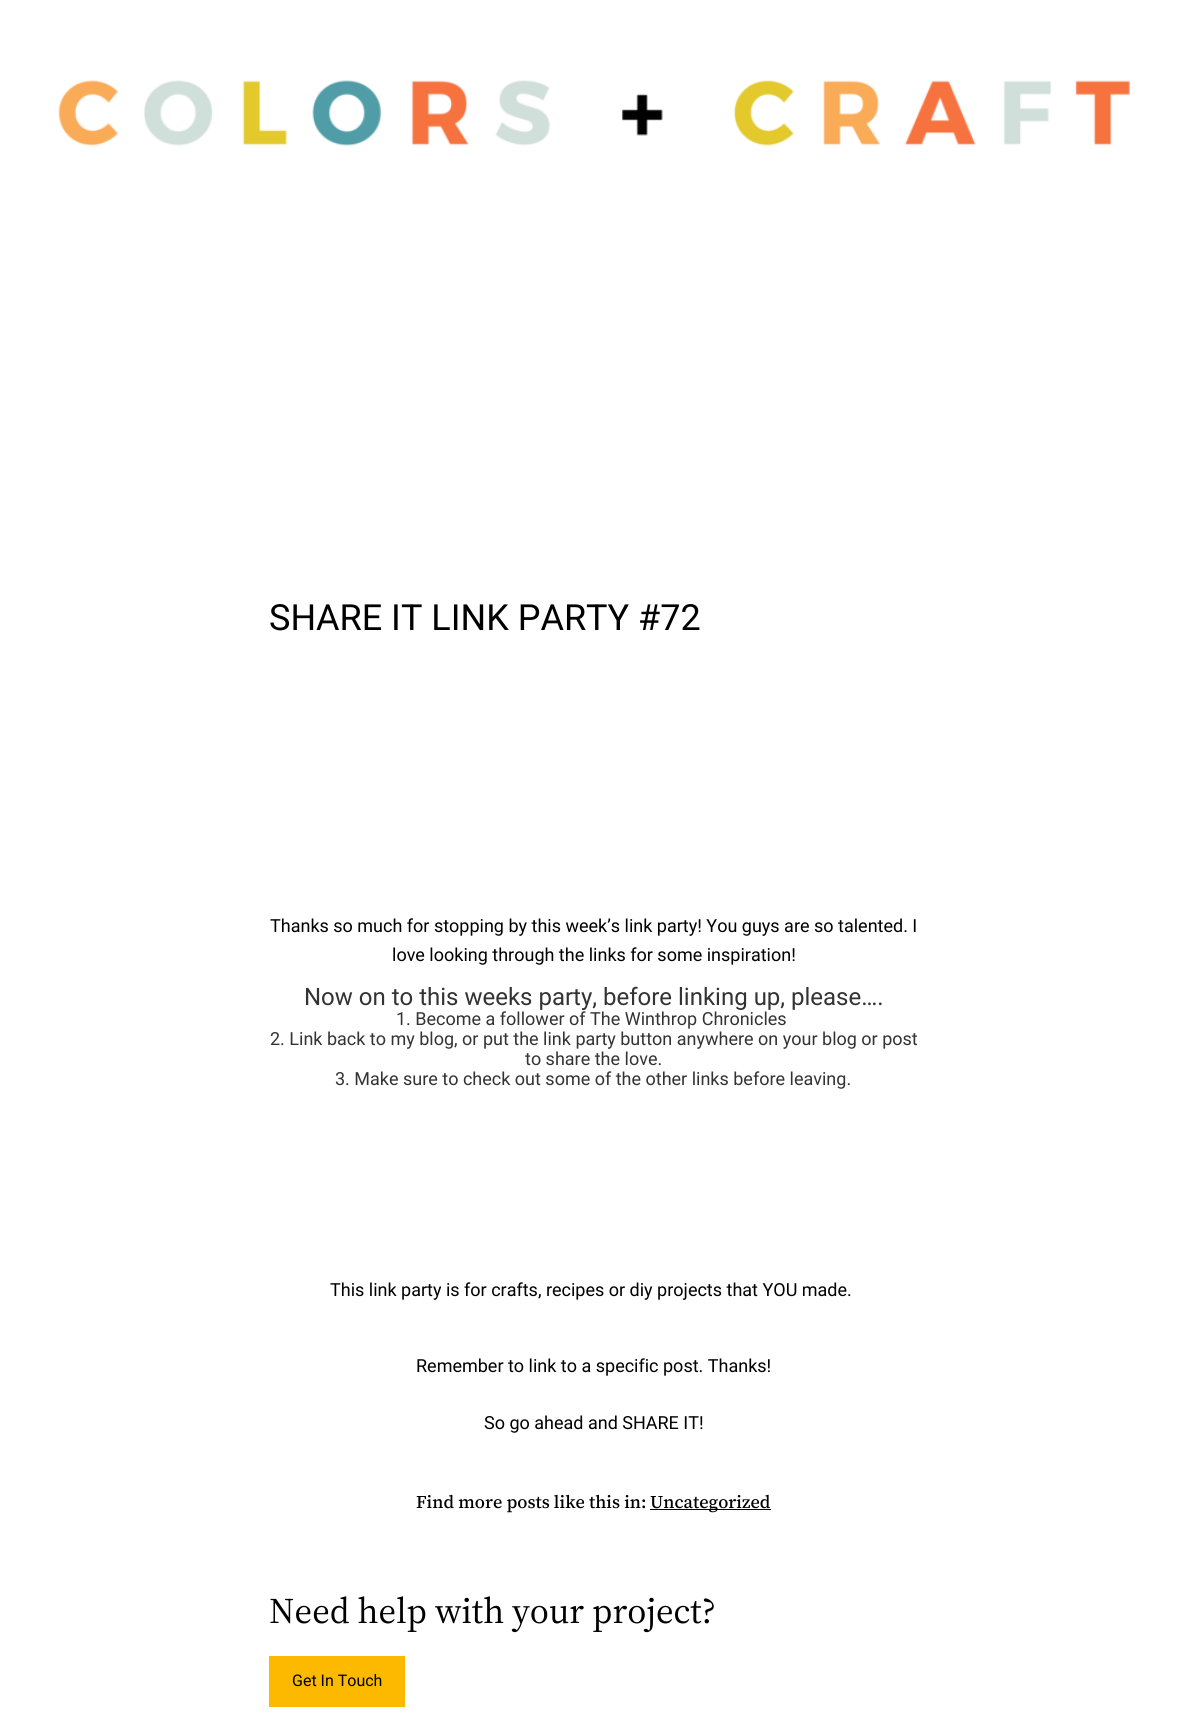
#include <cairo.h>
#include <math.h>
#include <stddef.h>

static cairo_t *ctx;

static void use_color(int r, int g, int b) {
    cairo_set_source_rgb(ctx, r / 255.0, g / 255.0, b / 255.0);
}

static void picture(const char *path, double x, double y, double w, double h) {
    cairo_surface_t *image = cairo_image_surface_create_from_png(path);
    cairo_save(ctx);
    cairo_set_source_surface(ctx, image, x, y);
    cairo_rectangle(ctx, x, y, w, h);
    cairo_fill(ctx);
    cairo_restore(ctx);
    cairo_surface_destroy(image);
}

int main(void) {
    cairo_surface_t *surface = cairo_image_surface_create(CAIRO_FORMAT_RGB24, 1187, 1718);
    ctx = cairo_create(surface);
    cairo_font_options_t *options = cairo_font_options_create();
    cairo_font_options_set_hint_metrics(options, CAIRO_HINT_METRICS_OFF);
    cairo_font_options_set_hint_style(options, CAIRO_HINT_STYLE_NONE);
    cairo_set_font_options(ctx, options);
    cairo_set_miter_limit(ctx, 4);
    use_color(255, 255, 255);
    cairo_paint(ctx);
    picture("img1.png", 58, 80, 1072, 66);
    cairo_select_font_face(ctx, "Roboto", CAIRO_FONT_SLANT_NORMAL, CAIRO_FONT_WEIGHT_NORMAL);
    cairo_set_font_size(ctx, 36);
    use_color(0, 0, 0);
    cairo_move_to(ctx, 269, 630);
    cairo_show_text(ctx, "SHARE IT LINK PARTY #72");
    cairo_set_font_size(ctx, 18);
    cairo_move_to(ctx, 270, 932);
    cairo_show_text(ctx, "Thanks so much for stopping by this week’s link party! You guys are so talented. I");
    cairo_move_to(ctx, 392, 961);
    cairo_show_text(ctx, "love looking through the links for some inspiration!");
    cairo_set_font_size(ctx, 24);
    use_color(51, 51, 51);
    cairo_move_to(ctx, 304, 1005);
    cairo_show_text(ctx, "Now on to this weeks party, before linking up, please….");
    cairo_set_font_size(ctx, 18);
    cairo_move_to(ctx, 396, 1025);
    cairo_show_text(ctx, "1. Become a follower of The Winthrop Chronicles");
    cairo_move_to(ctx, 270, 1045);
    cairo_show_text(ctx, "2. Link back to my blog, or put the link party button anywhere on your blog or post");
    cairo_move_to(ctx, 525, 1065);
    cairo_show_text(ctx, "to share the love.");
    cairo_move_to(ctx, 335, 1085);
    cairo_show_text(ctx, "3. Make sure to check out some of the other links before leaving.");
    use_color(0, 0, 0);
    cairo_move_to(ctx, 330, 1296);
    cairo_show_text(ctx, "This link party is for crafts, recipes or diy projects that YOU made.");
    cairo_move_to(ctx, 416, 1372);
    cairo_show_text(ctx, "Remember to link to a specific post. Thanks!");
    cairo_move_to(ctx, 484, 1429);
    cairo_show_text(ctx, "So go ahead and SHARE IT!");
    cairo_select_font_face(ctx, "Source Serif 4 Medium", CAIRO_FONT_SLANT_NORMAL, CAIRO_FONT_WEIGHT_NORMAL);
    cairo_move_to(ctx, 416, 1508);
    cairo_show_text(ctx, "Find more posts like this in:");
    cairo_rectangle(ctx, 650, 1509, 121, 1);
    cairo_fill(ctx);
    cairo_move_to(ctx, 650, 1508);
    cairo_show_text(ctx, "Uncategorized");
    cairo_select_font_face(ctx, "Source Serif 4", CAIRO_FONT_SLANT_NORMAL, CAIRO_FONT_WEIGHT_NORMAL);
    cairo_set_font_size(ctx, 36);
    cairo_move_to(ctx, 269, 1623);
    cairo_show_text(ctx, "Need help with your project?");
    use_color(252, 185, 0);
    cairo_rectangle(ctx, 269, 1656, 136, 51);
    cairo_fill(ctx);
    cairo_select_font_face(ctx, "Roboto", CAIRO_FONT_SLANT_NORMAL, CAIRO_FONT_WEIGHT_NORMAL);
    cairo_set_font_size(ctx, 16);
    use_color(0, 0, 0);
    cairo_move_to(ctx, 292, 1686);
    cairo_show_text(ctx, "Get In Touch");
    cairo_surface_write_to_png(surface, "result.png");
    cairo_font_options_destroy(options);
    cairo_destroy(ctx);
    cairo_surface_destroy(surface);
    return 0;
}
